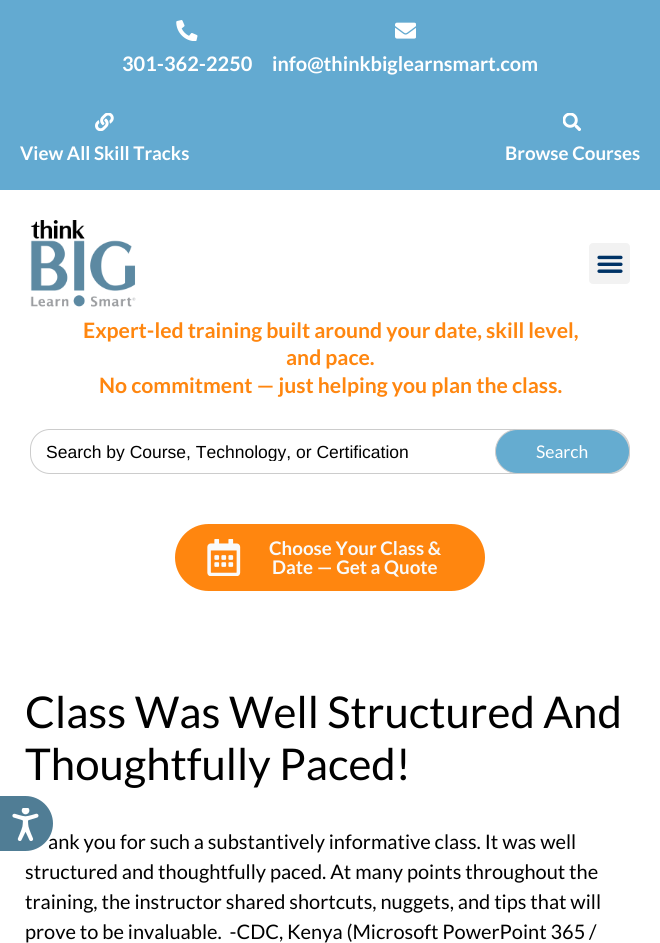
#include <cairo.h>
#include <math.h>
#include <stddef.h>

static cairo_t *ctx;

static void use_color(int r, int g, int b) {
    cairo_set_source_rgb(ctx, r / 255.0, g / 255.0, b / 255.0);
}

static void round_rect(double x, double y, double w, double h, double r) {
    cairo_new_sub_path(ctx);
    cairo_arc(ctx, x + w - r, y + h - r, r, 0, M_PI / 2);
    cairo_arc(ctx, x + r, y + h - r, r, M_PI / 2, M_PI);
    cairo_arc(ctx, x + r, y + r, r, M_PI, 1.5 * M_PI);
    cairo_arc(ctx, x + w - r, y + r, r, 1.5 * M_PI, 2 * M_PI);
    cairo_close_path(ctx);
}

static void picture(const char *path, double x, double y, double w, double h) {
    cairo_surface_t *image = cairo_image_surface_create_from_png(path);
    cairo_save(ctx);
    cairo_set_source_surface(ctx, image, x, y);
    cairo_rectangle(ctx, x, y, w, h);
    cairo_fill(ctx);
    cairo_restore(ctx);
    cairo_surface_destroy(image);
}

int main(void) {
    cairo_surface_t *surface = cairo_image_surface_create(CAIRO_FORMAT_RGB24, 660, 943);
    ctx = cairo_create(surface);
    cairo_font_options_t *options = cairo_font_options_create();
    cairo_font_options_set_hint_metrics(options, CAIRO_HINT_METRICS_OFF);
    cairo_font_options_set_hint_style(options, CAIRO_HINT_STYLE_NONE);
    cairo_set_font_options(ctx, options);
    cairo_set_miter_limit(ctx, 4);
    use_color(255, 255, 255);
    cairo_paint(ctx);
    use_color(99, 170, 209);
    cairo_rectangle(ctx, 0, 0, 660, 190);
    cairo_fill(ctx);
    picture("img1.png", 176, 20, 22, 21);
    cairo_select_font_face(ctx, "Lato", CAIRO_FONT_SLANT_NORMAL, CAIRO_FONT_WEIGHT_BOLD);
    cairo_set_font_size(ctx, 20);
    use_color(255, 255, 255);
    cairo_move_to(ctx, 122, 71);
    cairo_show_text(ctx, "301-362-2250");
    picture("img2.png", 395, 22, 21, 17);
    cairo_move_to(ctx, 272, 71);
    cairo_show_text(ctx, "info@thinkbiglearnsmart.com");
    picture("img3.png", 95, 113, 19, 18);
    cairo_set_font_size(ctx, 18.75);
    cairo_move_to(ctx, 20, 160);
    cairo_show_text(ctx, "View All Skill Tracks");
    picture("img4.png", 563, 113, 18, 18);
    cairo_move_to(ctx, 505, 160);
    cairo_show_text(ctx, "Browse Courses");
    picture("img5.png", 30, 220, 106, 87);
    use_color(242, 242, 242);
    round_rect(589, 243, 41, 41, 4);
    cairo_fill(ctx);
    picture("img6.png", 597, 255, 26, 18);
    cairo_set_font_size(ctx, 21.2);
    use_color(255, 134, 15);
    cairo_move_to(ctx, 83, 338);
    cairo_show_text(ctx, "Expert-led training built around your date, skill level,");
    cairo_move_to(ctx, 286, 365);
    cairo_show_text(ctx, "and pace.");
    cairo_move_to(ctx, 99, 393);
    cairo_show_text(ctx, "No commitment — just helping you plan the class.");
    round_rect(30.5, 429.5, 599, 44, 19.5);
    use_color(204, 204, 204);
    cairo_set_line_width(ctx, 1);
    cairo_stroke(ctx);
    cairo_save(ctx);
    cairo_rectangle(ctx, 46, 441, 568, 20);
    cairo_clip(ctx);
    cairo_select_font_face(ctx, "Liberation Sans", CAIRO_FONT_SLANT_NORMAL, CAIRO_FONT_WEIGHT_NORMAL);
    cairo_set_font_size(ctx, 17.5);
    use_color(0, 0, 0);
    cairo_move_to(ctx, 46, 458);
    cairo_show_text(ctx, "Search by Course, Technology, or Certification");
    cairo_restore(ctx);
    use_color(101, 172, 208);
    round_rect(495.5, 429.5, 134, 44, 22);
    cairo_fill_preserve(ctx);
    use_color(204, 204, 204);
    cairo_stroke(ctx);
    cairo_select_font_face(ctx, "Lato", CAIRO_FONT_SLANT_NORMAL, CAIRO_FONT_WEIGHT_NORMAL);
    cairo_set_font_size(ctx, 17.5);
    use_color(255, 255, 255);
    cairo_move_to(ctx, 536, 458);
    cairo_show_text(ctx, "Search");
    use_color(255, 134, 15);
    round_rect(175, 524, 310, 67, 33.5);
    cairo_fill(ctx);
    picture("img7.png", 207, 539, 34, 37);
    cairo_select_font_face(ctx, "Lato", CAIRO_FONT_SLANT_NORMAL, CAIRO_FONT_WEIGHT_BOLD);
    cairo_set_font_size(ctx, 18.75);
    use_color(249, 250, 250);
    cairo_move_to(ctx, 269, 555);
    cairo_show_text(ctx, "Choose Your Class &");
    cairo_move_to(ctx, 272, 574);
    cairo_show_text(ctx, "Date — Get a Quote");
    cairo_select_font_face(ctx, "Lato", CAIRO_FONT_SLANT_NORMAL, CAIRO_FONT_WEIGHT_NORMAL);
    cairo_set_font_size(ctx, 43.75);
    use_color(0, 0, 0);
    cairo_move_to(ctx, 25, 728);
    cairo_show_text(ctx, "Class Was Well Structured And");
    cairo_move_to(ctx, 25, 780);
    cairo_show_text(ctx, "Thoughtfully Paced!");
    cairo_set_font_size(ctx, 20);
    cairo_move_to(ctx, 48, 849);
    cairo_show_text(ctx, "ank you for such a substantively informative class. It was well");
    cairo_move_to(ctx, 25, 879);
    cairo_show_text(ctx, "structured and thoughtfully paced. At many points throughout the");
    cairo_move_to(ctx, 25, 909);
    cairo_show_text(ctx, "training, the instructor shared shortcuts, nuggets, and tips that will");
    cairo_move_to(ctx, 25, 939);
    cairo_show_text(ctx, "prove to be invaluable.  -CDC, Kenya (Microsoft PowerPoint 365 /");
    use_color(80, 125, 149);
    cairo_new_path(ctx);
    cairo_move_to(ctx, 0, 796);
    cairo_line_to(ctx, 25.5, 796);
    cairo_curve_to(ctx, 40.5, 796, 53, 808.5, 53, 823.5);
    cairo_curve_to(ctx, 53, 838.5, 40.5, 851, 25.5, 851);
    cairo_line_to(ctx, 0, 851);
    cairo_close_path(ctx);
    cairo_fill(ctx);
    picture("img8.png", 12, 808, 27, 33);
    cairo_surface_write_to_png(surface, "result.png");
    cairo_font_options_destroy(options);
    cairo_destroy(ctx);
    cairo_surface_destroy(surface);
    return 0;
}
